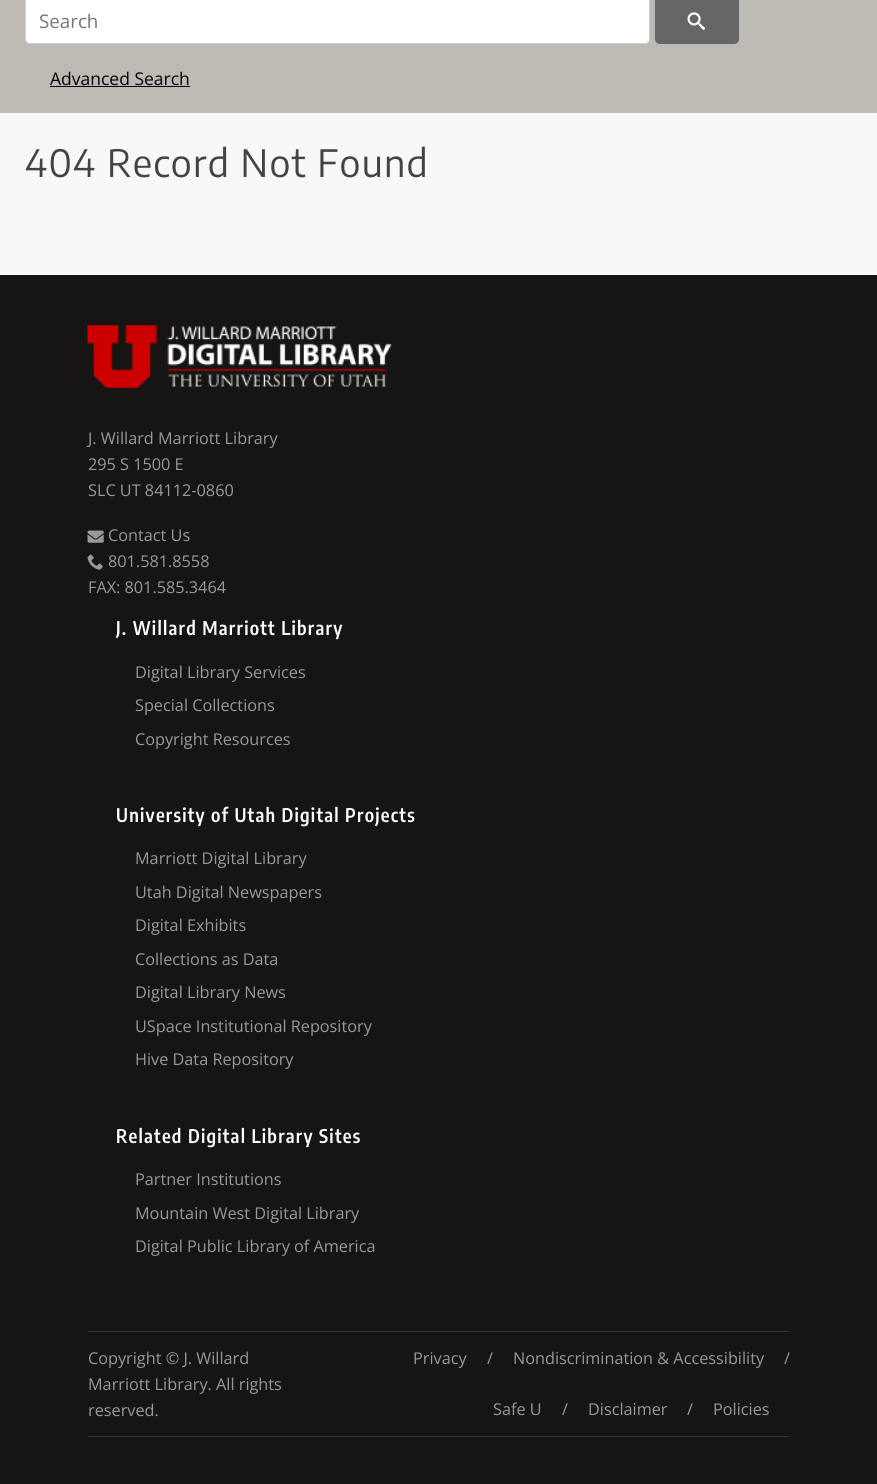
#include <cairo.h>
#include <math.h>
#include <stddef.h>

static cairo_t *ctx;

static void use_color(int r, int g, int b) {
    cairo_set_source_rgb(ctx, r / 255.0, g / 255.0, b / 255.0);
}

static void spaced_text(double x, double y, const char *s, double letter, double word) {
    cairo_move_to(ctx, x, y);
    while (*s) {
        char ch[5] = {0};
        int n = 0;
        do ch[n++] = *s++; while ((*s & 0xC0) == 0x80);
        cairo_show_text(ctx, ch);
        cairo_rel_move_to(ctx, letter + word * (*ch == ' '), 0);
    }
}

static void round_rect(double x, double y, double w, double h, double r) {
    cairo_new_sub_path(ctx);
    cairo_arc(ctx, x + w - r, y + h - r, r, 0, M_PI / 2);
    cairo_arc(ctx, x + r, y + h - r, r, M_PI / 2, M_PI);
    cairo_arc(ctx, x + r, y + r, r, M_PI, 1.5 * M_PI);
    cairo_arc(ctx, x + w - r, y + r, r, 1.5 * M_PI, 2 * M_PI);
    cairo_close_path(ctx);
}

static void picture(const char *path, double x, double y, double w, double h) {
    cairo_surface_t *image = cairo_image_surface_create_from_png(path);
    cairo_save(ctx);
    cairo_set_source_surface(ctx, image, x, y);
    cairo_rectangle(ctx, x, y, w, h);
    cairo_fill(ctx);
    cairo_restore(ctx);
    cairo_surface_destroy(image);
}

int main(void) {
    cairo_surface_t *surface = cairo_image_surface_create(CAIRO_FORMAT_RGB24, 877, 1484);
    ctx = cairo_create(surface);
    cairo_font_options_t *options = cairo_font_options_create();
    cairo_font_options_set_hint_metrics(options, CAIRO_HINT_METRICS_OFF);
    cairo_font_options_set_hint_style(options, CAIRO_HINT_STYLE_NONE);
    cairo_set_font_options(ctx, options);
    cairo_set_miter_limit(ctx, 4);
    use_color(248, 248, 247);
    cairo_paint(ctx);
    use_color(189, 186, 180);
    cairo_rectangle(ctx, 0, 0, 877, 113);
    cairo_fill(ctx);
    use_color(255, 255, 255);
    round_rect(25.5, -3.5, 624, 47, 4.5);
    cairo_fill_preserve(ctx);
    use_color(209, 209, 209);
    cairo_set_line_width(ctx, 1);
    cairo_stroke(ctx);
    cairo_select_font_face(ctx, "Open Sans", CAIRO_FONT_SLANT_NORMAL, CAIRO_FONT_WEIGHT_NORMAL);
    cairo_set_font_size(ctx, 18.75);
    use_color(117, 117, 117);
    cairo_move_to(ctx, 39, 28);
    cairo_show_text(ctx, "Search");
    use_color(102, 102, 102);
    round_rect(655.5, -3.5, 83, 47, 4.5);
    cairo_fill_preserve(ctx);
    cairo_stroke(ctx);
    picture("img1.png", 687, 12, 18, 18);
    cairo_set_font_size(ctx, 17.5);
    use_color(0, 0, 0);
    cairo_move_to(ctx, 50, 85);
    cairo_show_text(ctx, "Advanced Search");
    cairo_rectangle(ctx, 50, 86, 140, 1);
    cairo_fill(ctx);
    cairo_select_font_face(ctx, "Encode Sans", CAIRO_FONT_SLANT_NORMAL, CAIRO_FONT_WEIGHT_NORMAL);
    cairo_set_font_size(ctx, 37.5);
    use_color(67, 67, 67);
    spaced_text(25, 177, "404 Record Not Found", 1.25, 0);
    use_color(22, 21, 20);
    cairo_rectangle(ctx, 0, 275, 877, 1209);
    cairo_fill(ctx);
    picture("img2.png", 87, 325, 305, 63);
    cairo_select_font_face(ctx, "Open Sans", CAIRO_FONT_SLANT_NORMAL, CAIRO_FONT_WEIGHT_NORMAL);
    cairo_set_font_size(ctx, 16.25);
    use_color(153, 153, 153);
    cairo_move_to(ctx, 88, 444);
    cairo_show_text(ctx, "J. Willard Marriott Library");
    cairo_move_to(ctx, 88, 470);
    cairo_show_text(ctx, "295 S 1500 E");
    cairo_move_to(ctx, 88, 496);
    cairo_show_text(ctx, "SLC UT 84112-0860");
    picture("img3.png", 87, 530, 17, 13);
    cairo_move_to(ctx, 108, 541);
    cairo_show_text(ctx, "Contact Us");
    picture("img4.png", 87, 554, 16, 16);
    cairo_move_to(ctx, 108, 567);
    cairo_show_text(ctx, "801.581.8558");
    cairo_move_to(ctx, 88, 593);
    cairo_show_text(ctx, "FAX: 801.585.3464");
    cairo_select_font_face(ctx, "Encode Sans Condensed SemiBold", CAIRO_FONT_SLANT_NORMAL, CAIRO_FONT_WEIGHT_NORMAL);
    cairo_set_font_size(ctx, 18.75);
    use_color(255, 255, 255);
    spaced_text(116, 635, "J. Willard Marriott Library", 1.25, 0);
    cairo_select_font_face(ctx, "Open Sans", CAIRO_FONT_SLANT_NORMAL, CAIRO_FONT_WEIGHT_NORMAL);
    cairo_set_font_size(ctx, 16.25);
    use_color(153, 153, 153);
    cairo_move_to(ctx, 135, 678);
    cairo_show_text(ctx, "Digital Library Services");
    cairo_move_to(ctx, 135, 711);
    cairo_show_text(ctx, "Special Collections");
    cairo_move_to(ctx, 135, 745);
    cairo_show_text(ctx, "Copyright Resources");
    cairo_select_font_face(ctx, "Encode Sans Condensed SemiBold", CAIRO_FONT_SLANT_NORMAL, CAIRO_FONT_WEIGHT_NORMAL);
    cairo_set_font_size(ctx, 18.75);
    use_color(255, 255, 255);
    spaced_text(116, 822, "University of Utah Digital Projects", 1.25, 0);
    cairo_select_font_face(ctx, "Open Sans", CAIRO_FONT_SLANT_NORMAL, CAIRO_FONT_WEIGHT_NORMAL);
    cairo_set_font_size(ctx, 16.25);
    use_color(153, 153, 153);
    cairo_move_to(ctx, 135, 864);
    cairo_show_text(ctx, "Marriott Digital Library");
    cairo_move_to(ctx, 135, 898);
    cairo_show_text(ctx, "Utah Digital Newspapers");
    cairo_move_to(ctx, 135, 931);
    cairo_show_text(ctx, "Digital Exhibits");
    cairo_move_to(ctx, 135, 965);
    cairo_show_text(ctx, "Collections as Data");
    cairo_move_to(ctx, 135, 998);
    cairo_show_text(ctx, "Digital Library News");
    cairo_move_to(ctx, 135, 1032);
    cairo_show_text(ctx, "USpace Institutional Repository");
    cairo_move_to(ctx, 135, 1065);
    cairo_show_text(ctx, "Hive Data Repository");
    cairo_select_font_face(ctx, "Encode Sans Condensed SemiBold", CAIRO_FONT_SLANT_NORMAL, CAIRO_FONT_WEIGHT_NORMAL);
    cairo_set_font_size(ctx, 18.75);
    use_color(255, 255, 255);
    spaced_text(116, 1143, "Related Digital Library Sites", 1.25, 0);
    cairo_select_font_face(ctx, "Open Sans", CAIRO_FONT_SLANT_NORMAL, CAIRO_FONT_WEIGHT_NORMAL);
    cairo_set_font_size(ctx, 16.25);
    use_color(153, 153, 153);
    cairo_move_to(ctx, 135, 1185);
    cairo_show_text(ctx, "Partner Institutions");
    cairo_move_to(ctx, 135, 1219);
    cairo_show_text(ctx, "Mountain West Digital Library");
    cairo_move_to(ctx, 135, 1252);
    cairo_show_text(ctx, "Digital Public Library of America");
    use_color(52, 51, 49);
    cairo_rectangle(ctx, 88, 1331, 702, 1);
    cairo_fill(ctx);
    cairo_rectangle(ctx, 88, 1436, 702, 1);
    cairo_fill(ctx);
    use_color(153, 153, 153);
    cairo_move_to(ctx, 88, 1364);
    cairo_show_text(ctx, "Copyright © J. Willard");
    cairo_move_to(ctx, 88, 1390);
    cairo_show_text(ctx, "Marriott Library. All rights");
    cairo_move_to(ctx, 88, 1416);
    cairo_show_text(ctx, "reserved.");
    cairo_move_to(ctx, 413, 1364);
    cairo_show_text(ctx, "Privacy");
    cairo_move_to(ctx, 487, 1364);
    cairo_show_text(ctx, "/");
    cairo_move_to(ctx, 513, 1364);
    cairo_show_text(ctx, "Nondiscrimination & Accessibility");
    cairo_move_to(ctx, 784, 1364);
    cairo_show_text(ctx, "/");
    cairo_move_to(ctx, 493, 1415);
    cairo_show_text(ctx, "Safe U");
    cairo_move_to(ctx, 562, 1415);
    cairo_show_text(ctx, "/");
    cairo_move_to(ctx, 588, 1415);
    cairo_show_text(ctx, "Disclaimer");
    cairo_move_to(ctx, 687, 1415);
    cairo_show_text(ctx, "/");
    cairo_move_to(ctx, 713, 1415);
    cairo_show_text(ctx, "Policies");
    cairo_surface_write_to_png(surface, "result.png");
    cairo_font_options_destroy(options);
    cairo_destroy(ctx);
    cairo_surface_destroy(surface);
    return 0;
}
